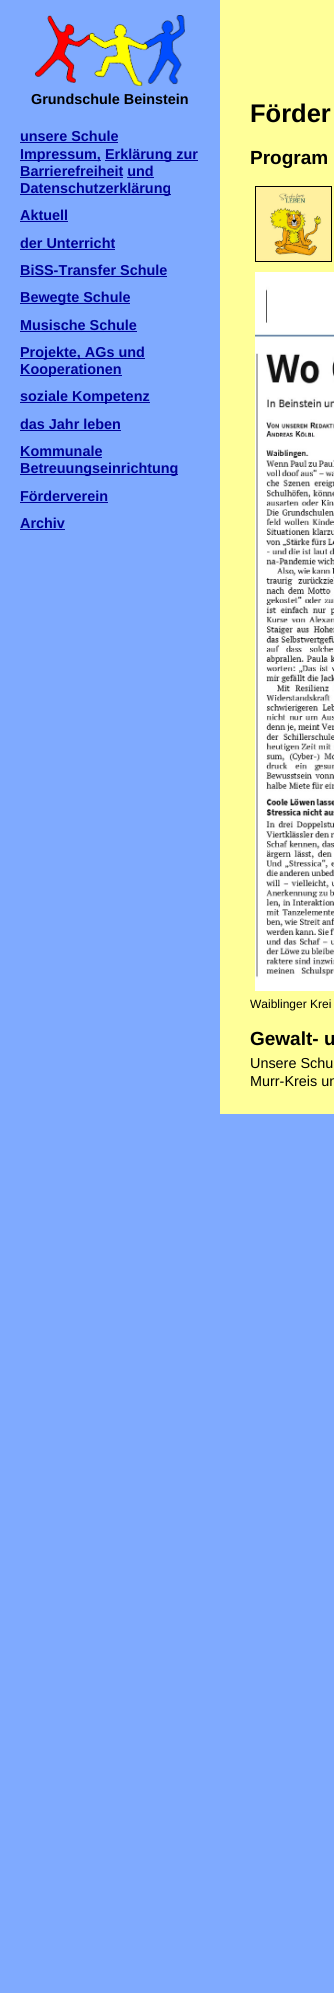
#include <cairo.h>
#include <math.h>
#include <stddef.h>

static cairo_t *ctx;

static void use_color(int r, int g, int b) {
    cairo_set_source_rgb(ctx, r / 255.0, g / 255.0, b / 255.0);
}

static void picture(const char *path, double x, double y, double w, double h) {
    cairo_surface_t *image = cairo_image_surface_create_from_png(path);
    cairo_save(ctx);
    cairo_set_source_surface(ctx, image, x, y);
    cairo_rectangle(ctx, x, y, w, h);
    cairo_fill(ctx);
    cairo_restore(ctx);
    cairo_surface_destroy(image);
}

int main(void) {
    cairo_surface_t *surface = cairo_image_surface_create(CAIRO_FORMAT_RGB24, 334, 1993);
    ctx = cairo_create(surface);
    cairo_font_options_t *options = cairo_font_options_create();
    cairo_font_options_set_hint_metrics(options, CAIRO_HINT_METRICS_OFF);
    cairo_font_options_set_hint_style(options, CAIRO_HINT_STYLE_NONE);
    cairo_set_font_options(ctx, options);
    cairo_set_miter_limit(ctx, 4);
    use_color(127, 170, 255);
    cairo_paint(ctx);
    picture("img1.png", 35, 15, 150, 71);
    cairo_select_font_face(ctx, "Liberation Sans", CAIRO_FONT_SLANT_NORMAL, CAIRO_FONT_WEIGHT_BOLD);
    cairo_set_font_size(ctx, 14.4);
    use_color(0, 0, 0);
    cairo_move_to(ctx, 31, 104);
    cairo_show_text(ctx, "Grundschule Beinstein");
    use_color(0, 0, 153);
    cairo_move_to(ctx, 20, 141);
    cairo_show_text(ctx, "unsere Schule");
    cairo_rectangle(ctx, 20, 142, 98, 1);
    cairo_fill(ctx);
    cairo_rectangle(ctx, 20, 160, 81, 1);
    cairo_fill(ctx);
    cairo_move_to(ctx, 20, 159);
    cairo_show_text(ctx, "Impressum,");
    cairo_rectangle(ctx, 105, 160, 93, 1);
    cairo_fill(ctx);
    cairo_move_to(ctx, 105, 159);
    cairo_show_text(ctx, "Erklärung zur");
    cairo_move_to(ctx, 20, 176);
    cairo_show_text(ctx, "Barrierefreiheit und");
    cairo_rectangle(ctx, 20, 177, 103, 1);
    cairo_fill(ctx);
    cairo_rectangle(ctx, 20, 194, 151, 1);
    cairo_fill(ctx);
    cairo_move_to(ctx, 20, 193);
    cairo_show_text(ctx, "Datenschutzerklärung");
    cairo_rectangle(ctx, 127, 177, 27, 1);
    cairo_fill(ctx);
    cairo_move_to(ctx, 20, 220);
    cairo_show_text(ctx, "Aktuell");
    cairo_rectangle(ctx, 20, 221, 48, 1);
    cairo_fill(ctx);
    cairo_move_to(ctx, 20, 248);
    cairo_show_text(ctx, "der Unterricht");
    cairo_rectangle(ctx, 20, 249, 95, 1);
    cairo_fill(ctx);
    cairo_move_to(ctx, 20, 275);
    cairo_show_text(ctx, "BiSS-Transfer Schule");
    cairo_rectangle(ctx, 20, 276, 147, 1);
    cairo_fill(ctx);
    cairo_rectangle(ctx, 20, 303, 110, 1);
    cairo_fill(ctx);
    cairo_move_to(ctx, 20, 302);
    cairo_show_text(ctx, "Bewegte Schule");
    cairo_move_to(ctx, 20, 330);
    cairo_show_text(ctx, "Musische Schule");
    cairo_rectangle(ctx, 20, 331, 117, 1);
    cairo_fill(ctx);
    cairo_rectangle(ctx, 20, 358, 125, 1);
    cairo_fill(ctx);
    cairo_move_to(ctx, 20, 357);
    cairo_show_text(ctx, "Projekte, AGs und");
    cairo_rectangle(ctx, 20, 375, 102, 1);
    cairo_fill(ctx);
    cairo_move_to(ctx, 20, 374);
    cairo_show_text(ctx, "Kooperationen");
    cairo_rectangle(ctx, 20, 402, 130, 1);
    cairo_fill(ctx);
    cairo_move_to(ctx, 20, 401);
    cairo_show_text(ctx, "soziale Kompetenz");
    cairo_move_to(ctx, 20, 429);
    cairo_show_text(ctx, "das Jahr leben");
    cairo_rectangle(ctx, 20, 430, 101, 1);
    cairo_fill(ctx);
    cairo_move_to(ctx, 20, 456);
    cairo_show_text(ctx, "Kommunale");
    cairo_rectangle(ctx, 20, 457, 82, 1);
    cairo_fill(ctx);
    cairo_rectangle(ctx, 20, 474, 158, 1);
    cairo_fill(ctx);
    cairo_move_to(ctx, 20, 473);
    cairo_show_text(ctx, "Betreuungseinrichtung");
    cairo_move_to(ctx, 20, 501);
    cairo_show_text(ctx, "Förderverein");
    cairo_rectangle(ctx, 20, 502, 88, 1);
    cairo_fill(ctx);
    cairo_move_to(ctx, 20, 528);
    cairo_show_text(ctx, "Archiv");
    cairo_rectangle(ctx, 20, 529, 45, 1);
    cairo_fill(ctx);
    use_color(255, 255, 153);
    cairo_rectangle(ctx, 220, 0, 114, 1114);
    cairo_fill(ctx);
    cairo_set_font_size(ctx, 25.5);
    use_color(0, 0, 0);
    cairo_move_to(ctx, 250, 122);
    cairo_show_text(ctx, "Förder");
    cairo_set_font_size(ctx, 19);
    cairo_move_to(ctx, 250, 164);
    cairo_show_text(ctx, "Program");
    cairo_rectangle(ctx, 255.5, 186.5, 76, 75);
    cairo_set_line_width(ctx, 1);
    cairo_stroke(ctx);
    picture("img2.png", 256, 187, 75, 74);
    picture("img3.png", 255, 272, 79, 719);
    cairo_select_font_face(ctx, "Liberation Sans", CAIRO_FONT_SLANT_NORMAL, CAIRO_FONT_WEIGHT_NORMAL);
    cairo_set_font_size(ctx, 12);
    cairo_move_to(ctx, 250, 1008);
    cairo_show_text(ctx, "Waiblinger Krei");
    cairo_select_font_face(ctx, "Liberation Sans", CAIRO_FONT_SLANT_NORMAL, CAIRO_FONT_WEIGHT_BOLD);
    cairo_set_font_size(ctx, 19);
    cairo_move_to(ctx, 250, 1045);
    cairo_show_text(ctx, "Gewalt- u");
    cairo_select_font_face(ctx, "Liberation Sans", CAIRO_FONT_SLANT_NORMAL, CAIRO_FONT_WEIGHT_NORMAL);
    cairo_set_font_size(ctx, 14.4);
    cairo_move_to(ctx, 250, 1068);
    cairo_show_text(ctx, "Unsere Schu");
    cairo_move_to(ctx, 250, 1086);
    cairo_show_text(ctx, "Murr-Kreis un");
    cairo_surface_write_to_png(surface, "result.png");
    cairo_font_options_destroy(options);
    cairo_destroy(ctx);
    cairo_surface_destroy(surface);
    return 0;
}
